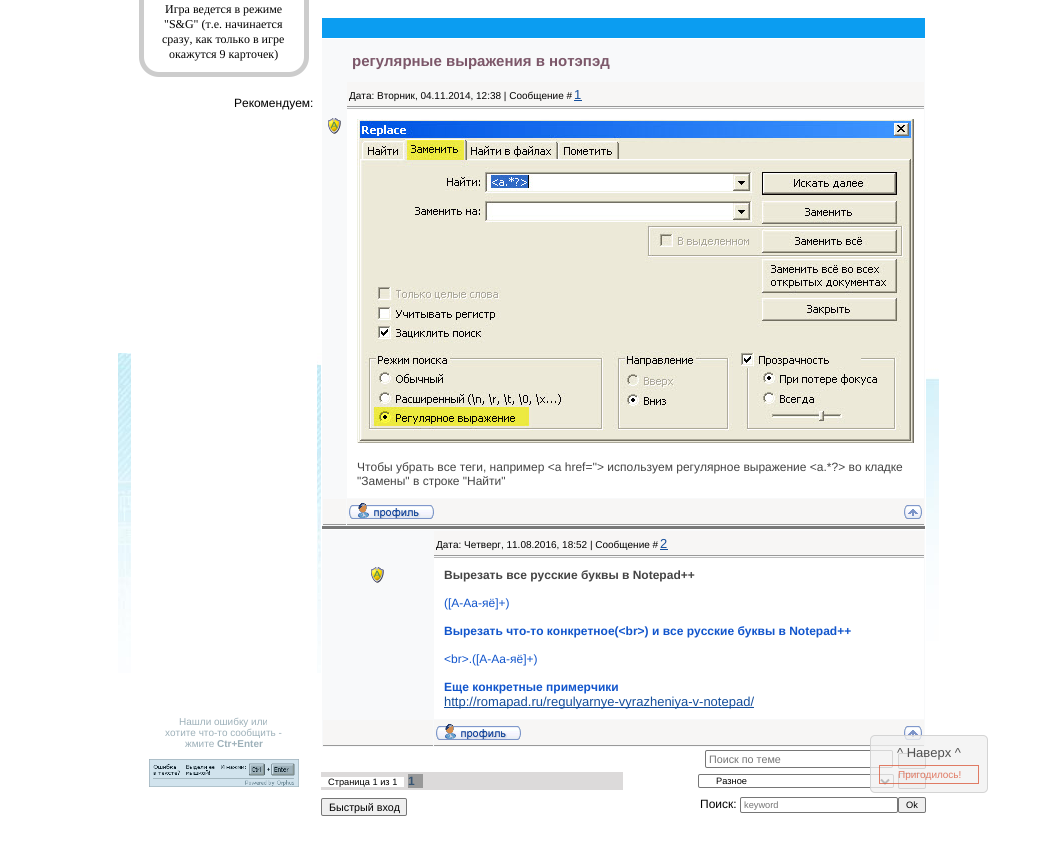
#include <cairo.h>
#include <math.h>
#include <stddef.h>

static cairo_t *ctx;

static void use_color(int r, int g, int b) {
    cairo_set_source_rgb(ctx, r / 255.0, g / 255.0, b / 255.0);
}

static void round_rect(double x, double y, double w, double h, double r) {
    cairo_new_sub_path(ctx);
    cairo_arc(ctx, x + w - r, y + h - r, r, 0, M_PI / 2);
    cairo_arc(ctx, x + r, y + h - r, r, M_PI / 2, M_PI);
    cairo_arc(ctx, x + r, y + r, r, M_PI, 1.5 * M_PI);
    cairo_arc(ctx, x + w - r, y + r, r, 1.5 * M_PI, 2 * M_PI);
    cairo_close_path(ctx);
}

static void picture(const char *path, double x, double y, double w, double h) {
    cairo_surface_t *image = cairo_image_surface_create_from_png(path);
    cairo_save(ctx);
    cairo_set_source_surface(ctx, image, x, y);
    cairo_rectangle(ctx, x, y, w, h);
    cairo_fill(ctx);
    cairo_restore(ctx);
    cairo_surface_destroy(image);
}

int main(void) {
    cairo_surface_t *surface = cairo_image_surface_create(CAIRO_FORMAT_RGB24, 1056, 858);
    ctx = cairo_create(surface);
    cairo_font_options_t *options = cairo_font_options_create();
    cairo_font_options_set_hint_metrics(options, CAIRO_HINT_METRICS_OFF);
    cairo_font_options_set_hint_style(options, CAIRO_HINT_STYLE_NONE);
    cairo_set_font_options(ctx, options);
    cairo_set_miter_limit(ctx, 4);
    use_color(255, 255, 255);
    cairo_paint(ctx);
    picture("img1.png", 118, 353, 821, 320);
    round_rect(141.5, -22.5, 165, 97, 17.5);
    use_color(204, 204, 204);
    cairo_set_line_width(ctx, 5);
    cairo_stroke(ctx);
    cairo_select_font_face(ctx, "Liberation Serif", CAIRO_FONT_SLANT_NORMAL, CAIRO_FONT_WEIGHT_NORMAL);
    cairo_set_font_size(ctx, 12);
    use_color(0, 0, 0);
    cairo_move_to(ctx, 165, 13);
    cairo_show_text(ctx, "Игра ведется в режиме");
    cairo_move_to(ctx, 164, 28);
    cairo_show_text(ctx, "\"S&G\" (т.е. начинается");
    cairo_move_to(ctx, 162, 43);
    cairo_show_text(ctx, "сразу, как только в игре");
    cairo_move_to(ctx, 169, 58);
    cairo_show_text(ctx, "окажутся 9 карточек)");
    cairo_select_font_face(ctx, "Liberation Sans", CAIRO_FONT_SLANT_NORMAL, CAIRO_FONT_WEIGHT_NORMAL);
    cairo_move_to(ctx, 234, 107);
    cairo_show_text(ctx, "Рекомендуем:");
    use_color(255, 255, 255);
    cairo_rectangle(ctx, 131, 353, 186, 320);
    cairo_fill(ctx);
    cairo_set_font_size(ctx, 10);
    use_color(157, 176, 185);
    cairo_move_to(ctx, 179, 725);
    cairo_show_text(ctx, "Нашли ошибку или");
    cairo_move_to(ctx, 165, 736);
    cairo_show_text(ctx, "хотите что-то сообщить -");
    cairo_move_to(ctx, 185, 747);
    cairo_show_text(ctx, "жмите");
    cairo_select_font_face(ctx, "Liberation Sans", CAIRO_FONT_SLANT_NORMAL, CAIRO_FONT_WEIGHT_BOLD);
    cairo_move_to(ctx, 217, 747);
    cairo_show_text(ctx, "Ctr+Enter");
    picture("img2.png", 149, 759, 150, 28);
    use_color(255, 255, 255);
    cairo_rectangle(ctx, 321, 355, 605, 318);
    cairo_fill(ctx);
    use_color(11, 157, 241);
    cairo_rectangle(ctx, 322, 18, 603, 20);
    cairo_fill(ctx);
    use_color(248, 249, 250);
    cairo_rectangle(ctx, 322, 39, 603, 487);
    cairo_fill(ctx);
    use_color(120, 120, 120);
    cairo_rectangle(ctx, 322, 526, 603, 3);
    cairo_fill(ctx);
    cairo_set_font_size(ctx, 15);
    use_color(124, 87, 105);
    cairo_move_to(ctx, 352, 66);
    cairo_show_text(ctx, "регулярные выражения в нотэпэд");
    use_color(247, 246, 245);
    cairo_rectangle(ctx, 347, 82, 577, 24);
    cairo_fill(ctx);
    use_color(153, 153, 153);
    cairo_rectangle(ctx, 347, 106, 577, 1);
    cairo_fill(ctx);
    cairo_select_font_face(ctx, "Liberation Sans", CAIRO_FONT_SLANT_NORMAL, CAIRO_FONT_WEIGHT_NORMAL);
    cairo_set_font_size(ctx, 10);
    use_color(0, 0, 0);
    cairo_move_to(ctx, 349, 99);
    cairo_show_text(ctx, "Дата: Вторник, 04.11.2014, 12:38 | Сообщение #");
    cairo_set_font_size(ctx, 13);
    use_color(20, 78, 155);
    cairo_move_to(ctx, 574, 99);
    cairo_show_text(ctx, "1");
    cairo_rectangle(ctx, 574, 100, 8, 1);
    cairo_fill(ctx);
    picture("img3.png", 328, 118, 13, 16);
    use_color(255, 255, 255);
    cairo_rectangle(ctx, 347, 109, 577, 389);
    cairo_fill(ctx);
    use_color(188, 188, 188);
    cairo_rectangle(ctx, 347, 108, 577, 1);
    cairo_fill(ctx);
    picture("img4.png", 357, 119, 557, 324);
    cairo_set_font_size(ctx, 12);
    use_color(68, 68, 68);
    cairo_move_to(ctx, 357, 471);
    cairo_show_text(ctx, "Чтобы убрать все теги, например <a href=''> используем регулярное выражение <a.*?> во кладке");
    cairo_move_to(ctx, 357, 485);
    cairo_show_text(ctx, "\"Замены\" в строке \"Найти\"");
    use_color(247, 246, 245);
    cairo_rectangle(ctx, 323, 499, 23, 25);
    cairo_fill(ctx);
    use_color(153, 153, 153);
    cairo_rectangle(ctx, 323, 524, 23, 1);
    cairo_fill(ctx);
    use_color(247, 246, 245);
    cairo_rectangle(ctx, 347, 499, 577, 25);
    cairo_fill(ctx);
    use_color(153, 153, 153);
    cairo_rectangle(ctx, 347, 524, 577, 1);
    cairo_fill(ctx);
    picture("img5.png", 349, 503, 85, 16);
    picture("img6.png", 904, 505, 18, 14);
    use_color(248, 249, 250);
    cairo_rectangle(ctx, 322, 530, 603, 217);
    cairo_fill(ctx);
    use_color(247, 246, 245);
    cairo_rectangle(ctx, 434, 531, 490, 24);
    cairo_fill(ctx);
    use_color(153, 153, 153);
    cairo_rectangle(ctx, 434, 555, 490, 1);
    cairo_fill(ctx);
    cairo_set_font_size(ctx, 10);
    use_color(0, 0, 0);
    cairo_move_to(ctx, 436, 548);
    cairo_show_text(ctx, "Дата: Четверг, 11.08.2016, 18:52 | Сообщение #");
    cairo_set_font_size(ctx, 13);
    use_color(20, 78, 155);
    cairo_move_to(ctx, 660, 548);
    cairo_show_text(ctx, "2");
    cairo_rectangle(ctx, 660, 549, 8, 1);
    cairo_fill(ctx);
    picture("img3.png", 371, 567, 13, 16);
    use_color(255, 255, 255);
    cairo_rectangle(ctx, 434, 558, 490, 161);
    cairo_fill(ctx);
    use_color(188, 188, 188);
    cairo_rectangle(ctx, 434, 557, 490, 1);
    cairo_fill(ctx);
    cairo_select_font_face(ctx, "Liberation Sans", CAIRO_FONT_SLANT_NORMAL, CAIRO_FONT_WEIGHT_BOLD);
    cairo_set_font_size(ctx, 12);
    use_color(68, 68, 68);
    cairo_move_to(ctx, 444, 579);
    cairo_show_text(ctx, "Вырезать все русские буквы в Notepad++");
    cairo_select_font_face(ctx, "Liberation Sans", CAIRO_FONT_SLANT_NORMAL, CAIRO_FONT_WEIGHT_NORMAL);
    use_color(17, 85, 204);
    cairo_move_to(ctx, 444, 607);
    cairo_show_text(ctx, "([A-Aа-яё]+)");
    cairo_select_font_face(ctx, "Liberation Sans", CAIRO_FONT_SLANT_NORMAL, CAIRO_FONT_WEIGHT_BOLD);
    cairo_move_to(ctx, 444, 635);
    cairo_show_text(ctx, "Вырезать что-то конкретное(<br>) и все русские буквы в Notepad++");
    cairo_select_font_face(ctx, "Liberation Sans", CAIRO_FONT_SLANT_NORMAL, CAIRO_FONT_WEIGHT_NORMAL);
    cairo_move_to(ctx, 444, 663);
    cairo_show_text(ctx, "<br>.([A-Aа-яё]+)");
    cairo_select_font_face(ctx, "Liberation Sans", CAIRO_FONT_SLANT_NORMAL, CAIRO_FONT_WEIGHT_BOLD);
    cairo_move_to(ctx, 444, 691);
    cairo_show_text(ctx, "Еще конкретные примерчики");
    use_color(20, 78, 155);
    cairo_rectangle(ctx, 444, 707, 310, 1);
    cairo_fill(ctx);
    cairo_select_font_face(ctx, "Liberation Sans", CAIRO_FONT_SLANT_NORMAL, CAIRO_FONT_WEIGHT_NORMAL);
    cairo_set_font_size(ctx, 13);
    cairo_move_to(ctx, 444, 706);
    cairo_show_text(ctx, "http://romapad.ru/regulyarnye-vyrazheniya-v-notepad/");
    use_color(247, 246, 245);
    cairo_rectangle(ctx, 323, 720, 110, 25);
    cairo_fill(ctx);
    use_color(153, 153, 153);
    cairo_rectangle(ctx, 323, 745, 110, 1);
    cairo_fill(ctx);
    use_color(247, 246, 245);
    cairo_rectangle(ctx, 434, 720, 490, 25);
    cairo_fill(ctx);
    use_color(153, 153, 153);
    cairo_rectangle(ctx, 434, 745, 490, 1);
    cairo_fill(ctx);
    picture("img5.png", 436, 724, 85, 16);
    picture("img6.png", 904, 726, 18, 14);
    round_rect(705.5, 750.5, 187, 17, 1.5);
    use_color(118, 118, 118);
    cairo_set_line_width(ctx, 1);
    cairo_stroke(ctx);
    cairo_set_font_size(ctx, 10.75);
    use_color(117, 117, 117);
    cairo_move_to(ctx, 709, 763);
    cairo_show_text(ctx, "Поиск по теме");
    use_color(239, 239, 239);
    round_rect(898.5, 753.5, 27, 15, 1.5);
    cairo_fill_preserve(ctx);
    use_color(118, 118, 118);
    cairo_stroke(ctx);
    use_color(220, 218, 218);
    cairo_rectangle(ctx, 321, 772, 302, 18);
    cairo_fill(ctx);
    use_color(255, 255, 255);
    cairo_rectangle(ctx, 321, 777, 83, 10);
    cairo_fill(ctx);
    cairo_set_font_size(ctx, 9.25);
    use_color(0, 0, 0);
    cairo_move_to(ctx, 328, 785);
    cairo_show_text(ctx, "Страница 1 из 1");
    use_color(153, 153, 153);
    cairo_rectangle(ctx, 408, 774, 15, 14);
    cairo_fill(ctx);
    cairo_select_font_face(ctx, "Liberation Sans", CAIRO_FONT_SLANT_NORMAL, CAIRO_FONT_WEIGHT_BOLD);
    cairo_set_font_size(ctx, 12);
    use_color(53, 84, 115);
    cairo_move_to(ctx, 408, 785);
    cairo_show_text(ctx, "1");
    round_rect(698.5, 774.5, 195, 13, 1.5);
    use_color(118, 118, 118);
    cairo_stroke(ctx);
    cairo_new_path(ctx);
    cairo_move_to(ctx, 881, 779.5);
    cairo_line_to(ctx, 885, 783.5);
    cairo_line_to(ctx, 889, 779.5);
    use_color(0, 0, 0);
    cairo_set_line_width(ctx, 2);
    cairo_stroke(ctx);
    cairo_select_font_face(ctx, "Liberation Sans", CAIRO_FONT_SLANT_NORMAL, CAIRO_FONT_WEIGHT_NORMAL);
    cairo_set_font_size(ctx, 9.25);
    cairo_move_to(ctx, 716, 784);
    cairo_show_text(ctx, "Разное");
    use_color(239, 239, 239);
    round_rect(898.5, 773.5, 27, 15, 1.5);
    cairo_fill_preserve(ctx);
    use_color(118, 118, 118);
    cairo_set_line_width(ctx, 1);
    cairo_stroke(ctx);
    use_color(239, 239, 239);
    round_rect(321.5, 798.5, 85, 17, 1.5);
    cairo_fill_preserve(ctx);
    use_color(118, 118, 118);
    cairo_stroke(ctx);
    cairo_set_font_size(ctx, 10.75);
    use_color(0, 0, 0);
    cairo_move_to(ctx, 329, 811);
    cairo_show_text(ctx, "Быстрый вход");
    cairo_set_font_size(ctx, 12);
    cairo_move_to(ctx, 700, 808);
    cairo_show_text(ctx, "Поиск:");
    round_rect(740.5, 797.5, 157, 15, 1.5);
    use_color(118, 118, 118);
    cairo_stroke(ctx);
    cairo_set_font_size(ctx, 9.25);
    use_color(117, 117, 117);
    cairo_move_to(ctx, 744, 808);
    cairo_show_text(ctx, "keyword");
    use_color(239, 239, 239);
    round_rect(898.5, 797.5, 27, 15, 1.5);
    cairo_fill_preserve(ctx);
    use_color(118, 118, 118);
    cairo_stroke(ctx);
    use_color(0, 0, 0);
    cairo_move_to(ctx, 906, 808);
    cairo_show_text(ctx, "Ok");
    cairo_set_source_rgba(ctx, 0.945, 0.945, 0.945, 0.77);
    round_rect(870, 735, 118, 58, 5);
    cairo_fill(ctx);
    round_rect(870.5, 735.5, 117, 57, 4.5);
    cairo_set_source_rgba(ctx, 0.8, 0.8, 0.8, 0.77);
    cairo_stroke(ctx);
    cairo_set_font_size(ctx, 13);
    use_color(81, 81, 81);
    cairo_move_to(ctx, 897, 757);
    cairo_show_text(ctx, "^ Наверх ^");
    cairo_rectangle(ctx, 879.5, 765.5, 99, 18);
    cairo_set_source_rgba(ctx, 0.859, 0.345, 0.231, 0.77);
    cairo_stroke(ctx);
    cairo_set_font_size(ctx, 10);
    use_color(224, 122, 100);
    cairo_move_to(ctx, 898, 778);
    cairo_show_text(ctx, "Пригодилось!");
    cairo_surface_write_to_png(surface, "result.png");
    cairo_font_options_destroy(options);
    cairo_destroy(ctx);
    cairo_surface_destroy(surface);
    return 0;
}
